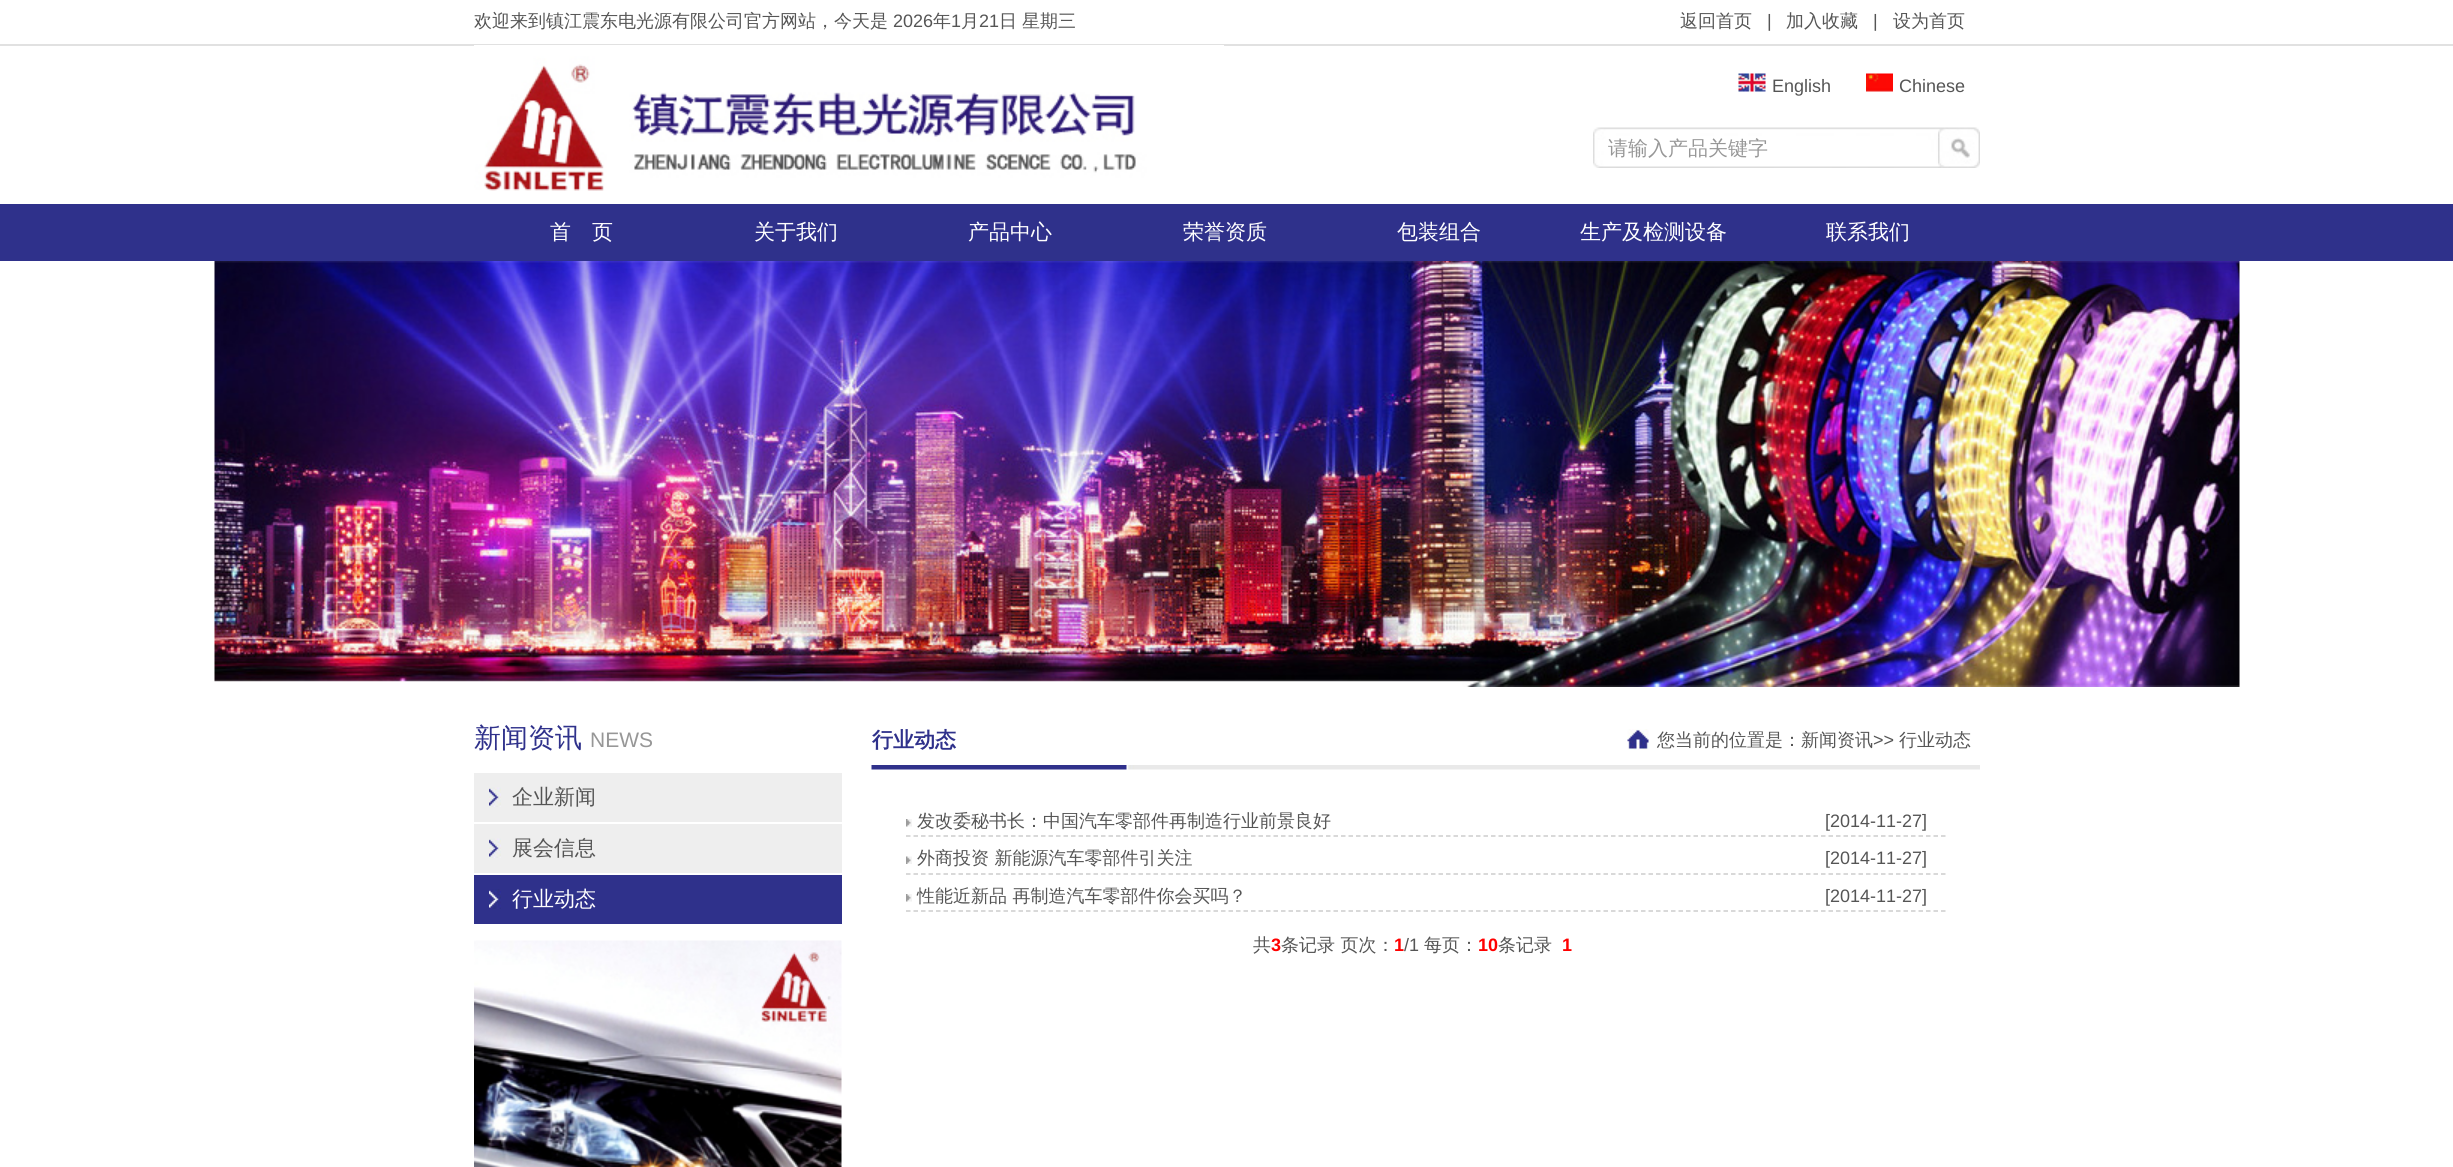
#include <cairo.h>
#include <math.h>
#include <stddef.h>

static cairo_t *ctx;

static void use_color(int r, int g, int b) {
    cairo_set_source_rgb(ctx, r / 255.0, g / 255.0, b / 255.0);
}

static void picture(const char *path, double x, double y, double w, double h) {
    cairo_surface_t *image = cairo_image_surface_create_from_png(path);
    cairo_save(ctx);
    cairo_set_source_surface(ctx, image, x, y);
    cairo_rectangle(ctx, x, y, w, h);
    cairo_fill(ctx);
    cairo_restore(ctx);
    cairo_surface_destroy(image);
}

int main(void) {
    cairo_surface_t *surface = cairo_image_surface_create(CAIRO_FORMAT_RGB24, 2453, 1167);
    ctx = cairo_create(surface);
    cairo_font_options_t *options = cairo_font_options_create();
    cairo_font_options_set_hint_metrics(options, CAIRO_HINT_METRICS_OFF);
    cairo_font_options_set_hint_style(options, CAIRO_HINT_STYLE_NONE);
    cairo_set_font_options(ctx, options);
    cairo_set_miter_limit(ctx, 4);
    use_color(255, 255, 255);
    cairo_paint(ctx);
    use_color(225, 225, 225);
    cairo_rectangle(ctx, 0, 44, 2453, 2);
    cairo_fill(ctx);
    cairo_select_font_face(ctx, "WenQuanYi Zen Hei Medium", CAIRO_FONT_SLANT_NORMAL, CAIRO_FONT_WEIGHT_NORMAL);
    cairo_set_font_size(ctx, 18);
    use_color(85, 85, 85);
    cairo_move_to(ctx, 474, 27);
    cairo_show_text(ctx, "欢迎来到镇江震东电光源有限公司官方网站，今天是");
    cairo_select_font_face(ctx, "Liberation Sans", CAIRO_FONT_SLANT_NORMAL, CAIRO_FONT_WEIGHT_NORMAL);
    cairo_move_to(ctx, 893, 27);
    cairo_show_text(ctx, "2026");
    cairo_select_font_face(ctx, "WenQuanYi Zen Hei Medium", CAIRO_FONT_SLANT_NORMAL, CAIRO_FONT_WEIGHT_NORMAL);
    cairo_move_to(ctx, 933, 27);
    cairo_show_text(ctx, "年");
    cairo_select_font_face(ctx, "Liberation Sans", CAIRO_FONT_SLANT_NORMAL, CAIRO_FONT_WEIGHT_NORMAL);
    cairo_move_to(ctx, 951, 27);
    cairo_show_text(ctx, "1");
    cairo_select_font_face(ctx, "WenQuanYi Zen Hei Medium", CAIRO_FONT_SLANT_NORMAL, CAIRO_FONT_WEIGHT_NORMAL);
    cairo_move_to(ctx, 961, 27);
    cairo_show_text(ctx, "月");
    cairo_select_font_face(ctx, "Liberation Sans", CAIRO_FONT_SLANT_NORMAL, CAIRO_FONT_WEIGHT_NORMAL);
    cairo_move_to(ctx, 979, 27);
    cairo_show_text(ctx, "21");
    cairo_select_font_face(ctx, "WenQuanYi Zen Hei Medium", CAIRO_FONT_SLANT_NORMAL, CAIRO_FONT_WEIGHT_NORMAL);
    cairo_move_to(ctx, 999, 27);
    cairo_show_text(ctx, "日");
    cairo_move_to(ctx, 1022, 27);
    cairo_show_text(ctx, "星期三");
    cairo_move_to(ctx, 1680, 27);
    cairo_show_text(ctx, "返回首页");
    cairo_select_font_face(ctx, "Liberation Sans", CAIRO_FONT_SLANT_NORMAL, CAIRO_FONT_WEIGHT_NORMAL);
    cairo_move_to(ctx, 1767, 27);
    cairo_show_text(ctx, "|");
    cairo_select_font_face(ctx, "WenQuanYi Zen Hei Medium", CAIRO_FONT_SLANT_NORMAL, CAIRO_FONT_WEIGHT_NORMAL);
    cairo_move_to(ctx, 1786, 27);
    cairo_show_text(ctx, "加入收藏");
    cairo_select_font_face(ctx, "Liberation Sans", CAIRO_FONT_SLANT_NORMAL, CAIRO_FONT_WEIGHT_NORMAL);
    cairo_move_to(ctx, 1873, 27);
    cairo_show_text(ctx, "|");
    cairo_select_font_face(ctx, "WenQuanYi Zen Hei Medium", CAIRO_FONT_SLANT_NORMAL, CAIRO_FONT_WEIGHT_NORMAL);
    cairo_move_to(ctx, 1893, 27);
    cairo_show_text(ctx, "设为首页");
    picture("img1.png", 474, 45, 750, 146);
    picture("img2.png", 1738, 73, 28, 19);
    cairo_select_font_face(ctx, "Liberation Sans", CAIRO_FONT_SLANT_NORMAL, CAIRO_FONT_WEIGHT_NORMAL);
    cairo_move_to(ctx, 1772, 92);
    cairo_show_text(ctx, "English");
    picture("img3.png", 1866, 73, 27, 19);
    cairo_move_to(ctx, 1899, 92);
    cairo_show_text(ctx, "Chinese");
    picture("img4.png", 1593, 127, 345, 41);
    cairo_select_font_face(ctx, "WenQuanYi Zen Hei Medium", CAIRO_FONT_SLANT_NORMAL, CAIRO_FONT_WEIGHT_NORMAL);
    cairo_set_font_size(ctx, 20);
    use_color(151, 151, 151);
    cairo_move_to(ctx, 1608, 155);
    cairo_show_text(ctx, "请输入产品关键字");
    picture("img5.png", 1938, 127, 42, 41);
    use_color(47, 49, 139);
    cairo_rectangle(ctx, 0, 204, 2453, 57);
    cairo_fill(ctx);
    cairo_set_font_size(ctx, 21);
    use_color(255, 255, 255);
    cairo_move_to(ctx, 550, 239);
    cairo_show_text(ctx, "首　页");
    cairo_move_to(ctx, 754, 239);
    cairo_show_text(ctx, "关于我们");
    cairo_move_to(ctx, 968, 239);
    cairo_show_text(ctx, "产品中心");
    cairo_move_to(ctx, 1183, 239);
    cairo_show_text(ctx, "荣誉资质");
    cairo_move_to(ctx, 1397, 239);
    cairo_show_text(ctx, "包装组合");
    cairo_move_to(ctx, 1580, 239);
    cairo_show_text(ctx, "生产及检测设备");
    cairo_move_to(ctx, 1826, 239);
    cairo_show_text(ctx, "联系我们");
    picture("img6.png", 214, 261, 2026, 426);
    cairo_set_font_size(ctx, 27);
    use_color(47, 49, 139);
    cairo_move_to(ctx, 474, 747);
    cairo_show_text(ctx, "新闻资讯");
    cairo_select_font_face(ctx, "Liberation Sans", CAIRO_FONT_SLANT_NORMAL, CAIRO_FONT_WEIGHT_NORMAL);
    cairo_set_font_size(ctx, 21);
    use_color(151, 151, 151);
    cairo_move_to(ctx, 590, 747);
    cairo_show_text(ctx, "NEWS");
    use_color(238, 238, 238);
    cairo_rectangle(ctx, 474, 773, 368, 49);
    cairo_fill(ctx);
    picture("img7.png", 489, 787, 12, 20);
    cairo_select_font_face(ctx, "WenQuanYi Zen Hei Medium", CAIRO_FONT_SLANT_NORMAL, CAIRO_FONT_WEIGHT_NORMAL);
    use_color(85, 85, 85);
    cairo_move_to(ctx, 512, 804);
    cairo_show_text(ctx, "企业新闻");
    use_color(238, 238, 238);
    cairo_rectangle(ctx, 474, 824, 368, 49);
    cairo_fill(ctx);
    picture("img7.png", 489, 838, 12, 20);
    use_color(85, 85, 85);
    cairo_move_to(ctx, 512, 855);
    cairo_show_text(ctx, "展会信息");
    use_color(47, 49, 139);
    cairo_rectangle(ctx, 474, 875, 368, 49);
    cairo_fill(ctx);
    picture("img8.png", 489, 889, 12, 20);
    use_color(255, 255, 255);
    cairo_move_to(ctx, 512, 906);
    cairo_show_text(ctx, "行业动态");
    picture("img9.png", 474, 940, 368, 227);
    picture("img10.png", 871, 765, 1109, 5);
    cairo_select_font_face(ctx, "WenQuanYi Zen Hei", CAIRO_FONT_SLANT_NORMAL, CAIRO_FONT_WEIGHT_BOLD);
    use_color(47, 49, 139);
    cairo_move_to(ctx, 872, 747);
    cairo_show_text(ctx, "行业动态");
    picture("img11.png", 1627, 729, 22, 21);
    cairo_select_font_face(ctx, "WenQuanYi Zen Hei Medium", CAIRO_FONT_SLANT_NORMAL, CAIRO_FONT_WEIGHT_NORMAL);
    cairo_set_font_size(ctx, 18);
    use_color(85, 85, 85);
    cairo_move_to(ctx, 1657, 746);
    cairo_show_text(ctx, "您当前的位置是：新闻资讯");
    cairo_select_font_face(ctx, "Liberation Sans", CAIRO_FONT_SLANT_NORMAL, CAIRO_FONT_WEIGHT_NORMAL);
    cairo_move_to(ctx, 1873, 746);
    cairo_show_text(ctx, ">>");
    cairo_select_font_face(ctx, "WenQuanYi Zen Hei Medium", CAIRO_FONT_SLANT_NORMAL, CAIRO_FONT_WEIGHT_NORMAL);
    cairo_move_to(ctx, 1899, 746);
    cairo_show_text(ctx, "行业动态");
    cairo_new_path(ctx);
    cairo_move_to(ctx, 906, 836);
    cairo_line_to(ctx, 1945.5, 836);
    use_color(204, 204, 204);
    cairo_set_line_width(ctx, 1.5);
    cairo_set_dash(ctx, (double[]){4.5, 3}, 2, 0);
    cairo_stroke(ctx);
    picture("img12.png", 906, 819, 6, 8);
    use_color(85, 85, 85);
    cairo_move_to(ctx, 917, 827);
    cairo_show_text(ctx, "发改委秘书长：中国汽车零部件再制造行业前景良好");
    cairo_select_font_face(ctx, "Liberation Sans", CAIRO_FONT_SLANT_NORMAL, CAIRO_FONT_WEIGHT_NORMAL);
    cairo_move_to(ctx, 1825, 827);
    cairo_show_text(ctx, "[2014-11-27]");
    cairo_new_path(ctx);
    cairo_move_to(ctx, 906, 874);
    cairo_line_to(ctx, 1945.5, 874);
    use_color(204, 204, 204);
    cairo_stroke(ctx);
    picture("img13.png", 906, 856, 6, 8);
    cairo_select_font_face(ctx, "WenQuanYi Zen Hei Medium", CAIRO_FONT_SLANT_NORMAL, CAIRO_FONT_WEIGHT_NORMAL);
    use_color(85, 85, 85);
    cairo_move_to(ctx, 917, 864);
    cairo_show_text(ctx, "外商投资 新能源汽车零部件引关注");
    cairo_select_font_face(ctx, "Liberation Sans", CAIRO_FONT_SLANT_NORMAL, CAIRO_FONT_WEIGHT_NORMAL);
    cairo_move_to(ctx, 1825, 864);
    cairo_show_text(ctx, "[2014-11-27]");
    cairo_new_path(ctx);
    cairo_move_to(ctx, 906, 911);
    cairo_line_to(ctx, 1945.5, 911);
    use_color(204, 204, 204);
    cairo_stroke(ctx);
    picture("img12.png", 906, 894, 6, 8);
    cairo_select_font_face(ctx, "WenQuanYi Zen Hei Medium", CAIRO_FONT_SLANT_NORMAL, CAIRO_FONT_WEIGHT_NORMAL);
    use_color(85, 85, 85);
    cairo_move_to(ctx, 917, 902);
    cairo_show_text(ctx, "性能近新品 再制造汽车零部件你会买吗？");
    cairo_select_font_face(ctx, "Liberation Sans", CAIRO_FONT_SLANT_NORMAL, CAIRO_FONT_WEIGHT_NORMAL);
    cairo_move_to(ctx, 1825, 902);
    cairo_show_text(ctx, "[2014-11-27]");
    cairo_select_font_face(ctx, "WenQuanYi Zen Hei Medium", CAIRO_FONT_SLANT_NORMAL, CAIRO_FONT_WEIGHT_NORMAL);
    cairo_move_to(ctx, 1253, 951);
    cairo_show_text(ctx, "共");
    cairo_select_font_face(ctx, "Liberation Sans", CAIRO_FONT_SLANT_NORMAL, CAIRO_FONT_WEIGHT_BOLD);
    use_color(255, 0, 0);
    cairo_move_to(ctx, 1271, 951);
    cairo_show_text(ctx, "3");
    cairo_select_font_face(ctx, "WenQuanYi Zen Hei Medium", CAIRO_FONT_SLANT_NORMAL, CAIRO_FONT_WEIGHT_NORMAL);
    use_color(85, 85, 85);
    cairo_move_to(ctx, 1281, 951);
    cairo_show_text(ctx, "条记录 页次：");
    cairo_select_font_face(ctx, "Liberation Sans", CAIRO_FONT_SLANT_NORMAL, CAIRO_FONT_WEIGHT_BOLD);
    use_color(255, 0, 0);
    cairo_move_to(ctx, 1394, 951);
    cairo_show_text(ctx, "1");
    cairo_select_font_face(ctx, "Liberation Sans", CAIRO_FONT_SLANT_NORMAL, CAIRO_FONT_WEIGHT_NORMAL);
    use_color(85, 85, 85);
    cairo_move_to(ctx, 1404, 951);
    cairo_show_text(ctx, "/1");
    cairo_select_font_face(ctx, "WenQuanYi Zen Hei Medium", CAIRO_FONT_SLANT_NORMAL, CAIRO_FONT_WEIGHT_NORMAL);
    cairo_move_to(ctx, 1424, 951);
    cairo_show_text(ctx, "每页：");
    cairo_select_font_face(ctx, "Liberation Sans", CAIRO_FONT_SLANT_NORMAL, CAIRO_FONT_WEIGHT_BOLD);
    use_color(255, 0, 0);
    cairo_move_to(ctx, 1478, 951);
    cairo_show_text(ctx, "10");
    cairo_select_font_face(ctx, "WenQuanYi Zen Hei Medium", CAIRO_FONT_SLANT_NORMAL, CAIRO_FONT_WEIGHT_NORMAL);
    use_color(85, 85, 85);
    cairo_move_to(ctx, 1498, 951);
    cairo_show_text(ctx, "条记录");
    cairo_select_font_face(ctx, "Liberation Sans", CAIRO_FONT_SLANT_NORMAL, CAIRO_FONT_WEIGHT_BOLD);
    use_color(255, 0, 0);
    cairo_move_to(ctx, 1562, 951);
    cairo_show_text(ctx, "1");
    cairo_surface_write_to_png(surface, "result.png");
    cairo_font_options_destroy(options);
    cairo_destroy(ctx);
    cairo_surface_destroy(surface);
    return 0;
}
